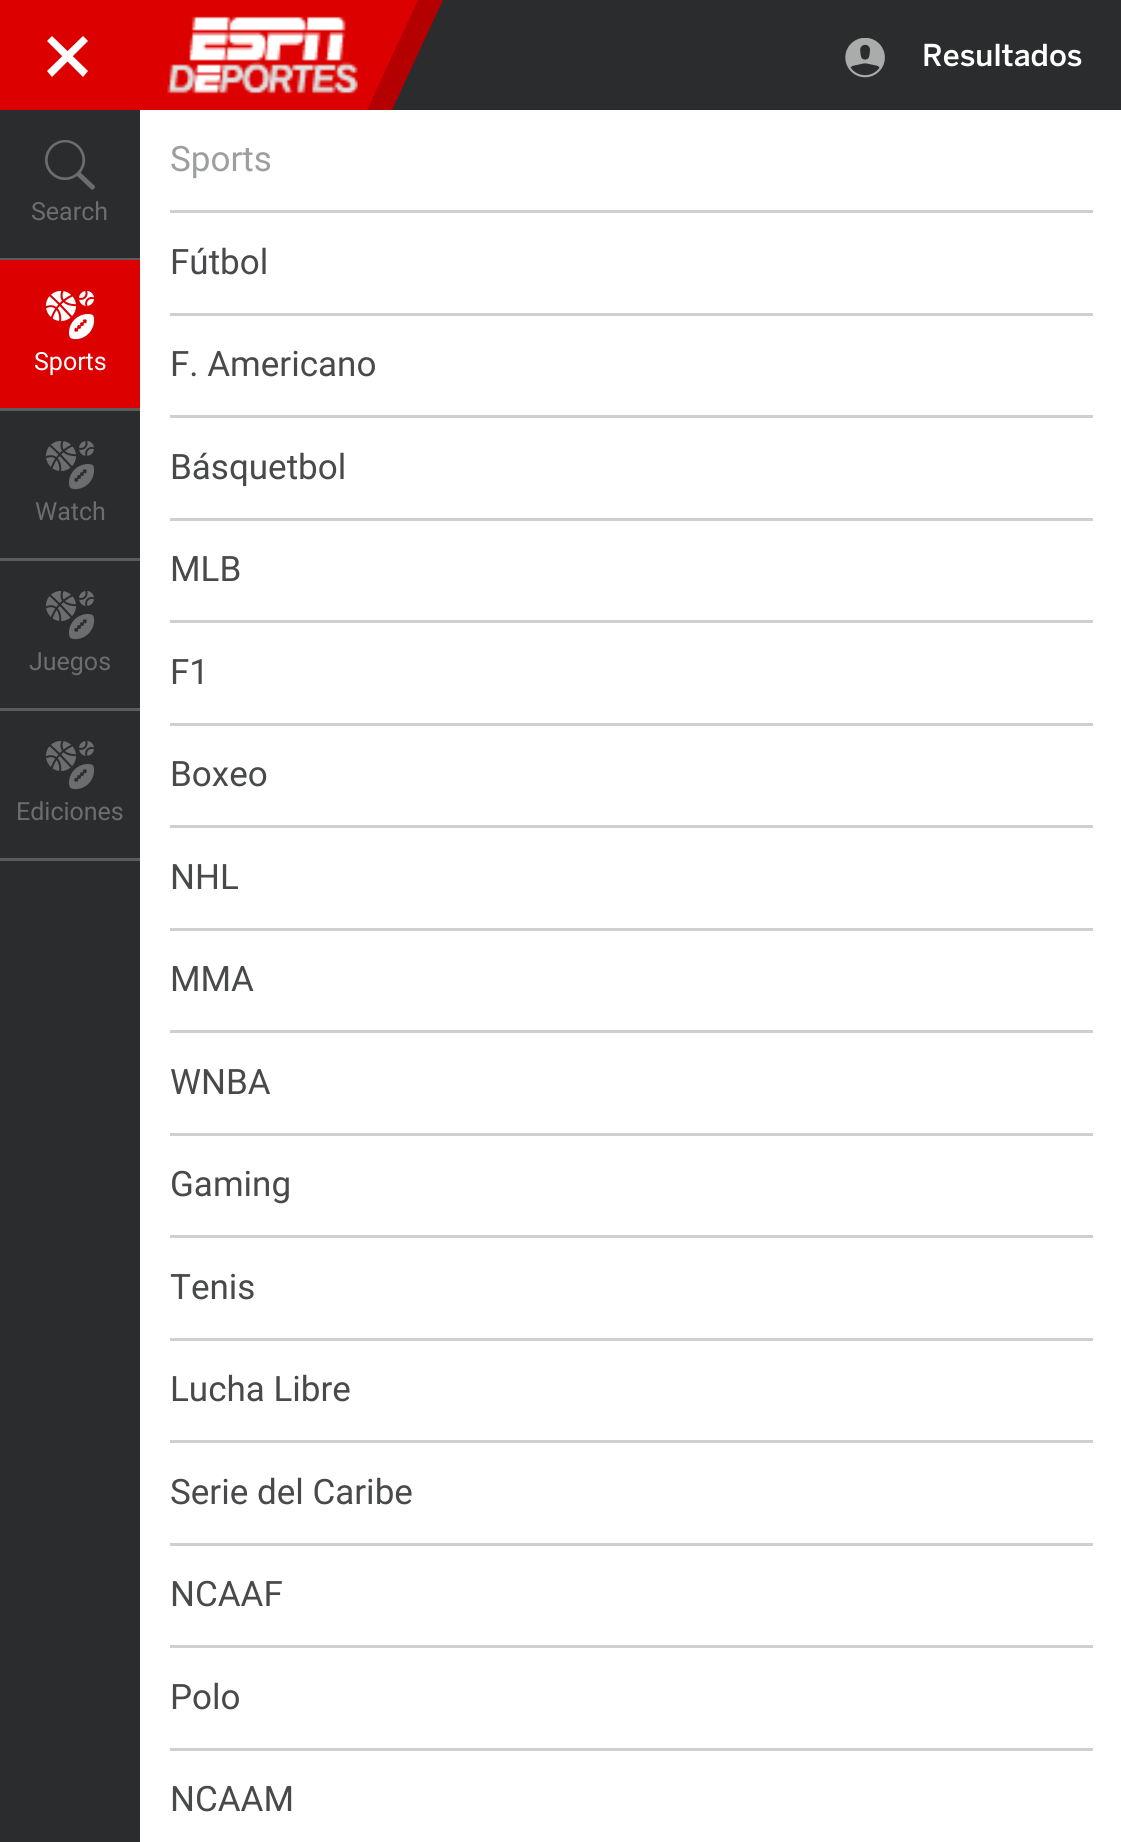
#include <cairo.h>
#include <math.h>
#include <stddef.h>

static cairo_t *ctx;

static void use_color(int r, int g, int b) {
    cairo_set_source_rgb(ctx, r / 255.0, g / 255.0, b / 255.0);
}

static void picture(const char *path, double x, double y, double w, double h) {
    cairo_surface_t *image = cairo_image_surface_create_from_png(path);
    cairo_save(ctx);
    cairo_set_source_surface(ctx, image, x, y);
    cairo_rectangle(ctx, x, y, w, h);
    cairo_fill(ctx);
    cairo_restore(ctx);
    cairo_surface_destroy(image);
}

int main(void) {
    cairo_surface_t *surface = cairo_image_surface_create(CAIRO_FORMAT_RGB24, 1121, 1842);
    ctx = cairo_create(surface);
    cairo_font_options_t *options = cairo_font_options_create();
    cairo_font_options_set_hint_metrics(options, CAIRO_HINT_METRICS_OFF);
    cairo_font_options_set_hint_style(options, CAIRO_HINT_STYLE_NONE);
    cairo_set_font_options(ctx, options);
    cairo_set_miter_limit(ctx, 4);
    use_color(43, 44, 45);
    cairo_paint(ctx);
    picture("img1.png", 845, 38, 40, 40);
    cairo_select_font_face(ctx, "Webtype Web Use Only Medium", CAIRO_FONT_SLANT_NORMAL, CAIRO_FONT_WEIGHT_NORMAL);
    cairo_set_font_size(ctx, 30);
    use_color(255, 255, 255);
    cairo_move_to(ctx, 922, 66);
    cairo_show_text(ctx, "Resultados");
    use_color(180, 0, 0);
    cairo_new_path(ctx);
    cairo_move_to(ctx, 133, 0);
    cairo_line_to(ctx, 443, 0);
    cairo_line_to(ctx, 392, 110);
    cairo_line_to(ctx, 82, 110);
    cairo_close_path(ctx);
    cairo_fill(ctx);
    use_color(221, 0, 0);
    cairo_new_path(ctx);
    cairo_move_to(ctx, -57, 0);
    cairo_line_to(ctx, 418, 0);
    cairo_line_to(ctx, 367, 110);
    cairo_line_to(ctx, -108, 110);
    cairo_close_path(ctx);
    cairo_fill(ctx);
    picture("img2.png", 167, 16, 191, 78);
    use_color(255, 255, 255);
    cairo_new_path(ctx);
    cairo_move_to(ctx, 52, 36);
    cairo_line_to(ctx, 88, 71);
    cairo_line_to(ctx, 83, 77);
    cairo_line_to(ctx, 47, 41);
    cairo_close_path(ctx);
    cairo_fill(ctx);
    cairo_new_path(ctx);
    cairo_move_to(ctx, 47, 71);
    cairo_line_to(ctx, 83, 36);
    cairo_line_to(ctx, 88, 41);
    cairo_line_to(ctx, 52, 77);
    cairo_close_path(ctx);
    cairo_fill(ctx);
    use_color(221, 0, 0);
    cairo_rectangle(ctx, 0, 260, 140, 148);
    cairo_fill(ctx);
    use_color(90, 92, 93);
    cairo_rectangle(ctx, 0, 408, 140, 3);
    cairo_fill(ctx);
    picture("img3.png", 45, 290, 50, 50);
    use_color(255, 255, 255);
    cairo_rectangle(ctx, 140, 110, 981, 1732);
    cairo_fill(ctx);
    cairo_select_font_face(ctx, "Roboto", CAIRO_FONT_SLANT_NORMAL, CAIRO_FONT_WEIGHT_NORMAL);
    cairo_set_font_size(ctx, 35);
    use_color(157, 158, 159);
    cairo_move_to(ctx, 170, 171);
    cairo_show_text(ctx, "Sports");
    use_color(206, 207, 207);
    cairo_rectangle(ctx, 170, 210, 923, 3);
    cairo_fill(ctx);
    use_color(72, 73, 74);
    cairo_move_to(ctx, 170, 274);
    cairo_show_text(ctx, "Fútbol");
    use_color(206, 207, 207);
    cairo_rectangle(ctx, 170, 313, 923, 3);
    cairo_fill(ctx);
    use_color(72, 73, 74);
    cairo_move_to(ctx, 170, 376);
    cairo_show_text(ctx, "F. Americano");
    use_color(206, 207, 207);
    cairo_rectangle(ctx, 170, 415, 923, 3);
    cairo_fill(ctx);
    use_color(72, 73, 74);
    cairo_move_to(ctx, 170, 479);
    cairo_show_text(ctx, "Básquetbol");
    use_color(206, 207, 207);
    cairo_rectangle(ctx, 170, 518, 923, 3);
    cairo_fill(ctx);
    use_color(72, 73, 74);
    cairo_move_to(ctx, 170, 581);
    cairo_show_text(ctx, "MLB");
    use_color(206, 207, 207);
    cairo_rectangle(ctx, 170, 620, 923, 3);
    cairo_fill(ctx);
    use_color(72, 73, 74);
    cairo_move_to(ctx, 170, 684);
    cairo_show_text(ctx, "F1");
    use_color(206, 207, 207);
    cairo_rectangle(ctx, 170, 723, 923, 3);
    cairo_fill(ctx);
    use_color(72, 73, 74);
    cairo_move_to(ctx, 170, 786);
    cairo_show_text(ctx, "Boxeo");
    use_color(206, 207, 207);
    cairo_rectangle(ctx, 170, 825, 923, 3);
    cairo_fill(ctx);
    use_color(72, 73, 74);
    cairo_move_to(ctx, 170, 889);
    cairo_show_text(ctx, "NHL");
    use_color(206, 207, 207);
    cairo_rectangle(ctx, 170, 928, 923, 3);
    cairo_fill(ctx);
    use_color(72, 73, 74);
    cairo_move_to(ctx, 170, 991);
    cairo_show_text(ctx, "MMA");
    use_color(206, 207, 207);
    cairo_rectangle(ctx, 170, 1030, 923, 3);
    cairo_fill(ctx);
    use_color(72, 73, 74);
    cairo_move_to(ctx, 170, 1094);
    cairo_show_text(ctx, "WNBA");
    use_color(206, 207, 207);
    cairo_rectangle(ctx, 170, 1133, 923, 3);
    cairo_fill(ctx);
    use_color(72, 73, 74);
    cairo_move_to(ctx, 170, 1196);
    cairo_show_text(ctx, "Gaming");
    use_color(206, 207, 207);
    cairo_rectangle(ctx, 170, 1235, 923, 3);
    cairo_fill(ctx);
    use_color(72, 73, 74);
    cairo_move_to(ctx, 170, 1299);
    cairo_show_text(ctx, "Tenis");
    use_color(206, 207, 207);
    cairo_rectangle(ctx, 170, 1338, 923, 3);
    cairo_fill(ctx);
    use_color(72, 73, 74);
    cairo_move_to(ctx, 170, 1401);
    cairo_show_text(ctx, "Lucha Libre");
    use_color(206, 207, 207);
    cairo_rectangle(ctx, 170, 1440, 923, 3);
    cairo_fill(ctx);
    use_color(72, 73, 74);
    cairo_move_to(ctx, 170, 1504);
    cairo_show_text(ctx, "Serie del Caribe");
    use_color(206, 207, 207);
    cairo_rectangle(ctx, 170, 1543, 923, 3);
    cairo_fill(ctx);
    use_color(72, 73, 74);
    cairo_move_to(ctx, 170, 1606);
    cairo_show_text(ctx, "NCAAF");
    use_color(206, 207, 207);
    cairo_rectangle(ctx, 170, 1645, 923, 3);
    cairo_fill(ctx);
    use_color(72, 73, 74);
    cairo_move_to(ctx, 170, 1709);
    cairo_show_text(ctx, "Polo");
    use_color(206, 207, 207);
    cairo_rectangle(ctx, 170, 1748, 923, 3);
    cairo_fill(ctx);
    use_color(72, 73, 74);
    cairo_move_to(ctx, 170, 1811);
    cairo_show_text(ctx, "NCAAM");
    cairo_set_font_size(ctx, 25);
    use_color(255, 255, 255);
    cairo_move_to(ctx, 34, 370);
    cairo_show_text(ctx, "Sports");
    use_color(90, 92, 93);
    cairo_rectangle(ctx, 0, 258, 140, 2);
    cairo_fill(ctx);
    picture("img4.png", 45, 140, 50, 50);
    use_color(108, 109, 111);
    cairo_move_to(ctx, 31, 220);
    cairo_show_text(ctx, "Search");
    use_color(90, 92, 93);
    cairo_rectangle(ctx, 0, 558, 140, 3);
    cairo_fill(ctx);
    picture("img5.png", 45, 441, 50, 49);
    use_color(108, 109, 111);
    cairo_move_to(ctx, 35, 520);
    cairo_show_text(ctx, "Watch");
    use_color(90, 92, 93);
    cairo_rectangle(ctx, 0, 708, 140, 3);
    cairo_fill(ctx);
    picture("img5.png", 45, 591, 50, 49);
    use_color(108, 109, 111);
    cairo_move_to(ctx, 29, 670);
    cairo_show_text(ctx, "Juegos");
    use_color(90, 92, 93);
    cairo_rectangle(ctx, 0, 858, 140, 3);
    cairo_fill(ctx);
    picture("img5.png", 45, 741, 50, 49);
    use_color(108, 109, 111);
    cairo_move_to(ctx, 16, 820);
    cairo_show_text(ctx, "Ediciones");
    cairo_surface_write_to_png(surface, "result.png");
    cairo_font_options_destroy(options);
    cairo_destroy(ctx);
    cairo_surface_destroy(surface);
    return 0;
}
